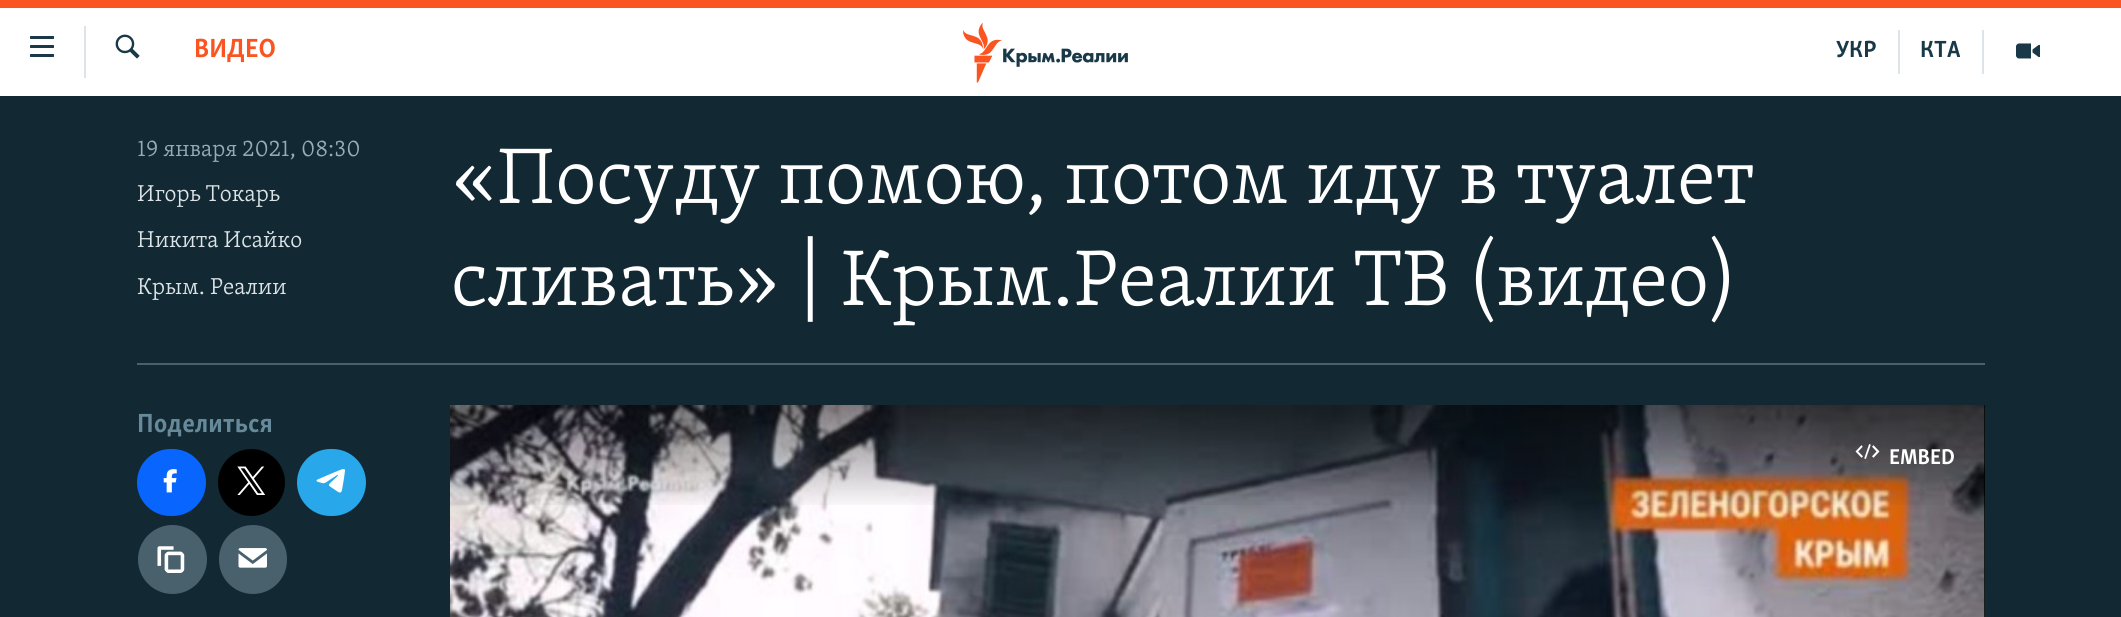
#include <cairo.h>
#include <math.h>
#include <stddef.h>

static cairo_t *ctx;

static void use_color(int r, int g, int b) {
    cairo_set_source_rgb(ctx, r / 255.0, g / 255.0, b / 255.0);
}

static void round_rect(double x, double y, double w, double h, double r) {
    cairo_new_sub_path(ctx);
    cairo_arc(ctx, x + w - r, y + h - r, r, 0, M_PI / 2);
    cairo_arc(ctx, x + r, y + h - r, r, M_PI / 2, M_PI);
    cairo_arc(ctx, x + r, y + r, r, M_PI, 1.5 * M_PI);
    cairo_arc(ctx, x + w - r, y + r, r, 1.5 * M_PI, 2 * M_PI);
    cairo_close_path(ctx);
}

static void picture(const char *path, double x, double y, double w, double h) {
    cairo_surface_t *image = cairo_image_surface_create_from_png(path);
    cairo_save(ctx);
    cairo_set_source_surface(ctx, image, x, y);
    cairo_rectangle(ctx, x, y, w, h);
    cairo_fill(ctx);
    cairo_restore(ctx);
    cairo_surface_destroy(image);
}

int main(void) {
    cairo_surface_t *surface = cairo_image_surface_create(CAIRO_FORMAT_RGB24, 2121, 617);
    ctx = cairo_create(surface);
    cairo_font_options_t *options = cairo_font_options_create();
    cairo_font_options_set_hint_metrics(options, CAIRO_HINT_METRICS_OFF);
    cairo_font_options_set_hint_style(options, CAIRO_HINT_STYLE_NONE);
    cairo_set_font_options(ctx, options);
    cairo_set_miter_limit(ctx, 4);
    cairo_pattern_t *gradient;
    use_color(255, 255, 255);
    cairo_paint(ctx);
    use_color(250, 84, 32);
    cairo_rectangle(ctx, 0, 0, 2121, 8);
    cairo_fill(ctx);
    picture("img1.png", 30, 36, 24, 21);
    use_color(220, 228, 232);
    cairo_rectangle(ctx, 84, 26, 2, 52);
    cairo_fill(ctx);
    picture("img2.png", 115, 34, 25, 25);
    cairo_select_font_face(ctx, "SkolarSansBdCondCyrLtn", CAIRO_FONT_SLANT_NORMAL, CAIRO_FONT_WEIGHT_BOLD);
    cairo_set_font_size(ctx, 27);
    use_color(250, 84, 32);
    cairo_move_to(ctx, 194, 57);
    cairo_show_text(ctx, "ВИДЕО");
    picture("img3.png", 963, 23, 165, 60);
    use_color(220, 228, 232);
    cairo_rectangle(ctx, 1898, 30, 2, 44);
    cairo_fill(ctx);
    cairo_set_font_size(ctx, 24);
    use_color(26, 57, 72);
    cairo_move_to(ctx, 1836, 57);
    cairo_show_text(ctx, "УКР");
    use_color(220, 228, 232);
    cairo_rectangle(ctx, 1982, 30, 2, 44);
    cairo_fill(ctx);
    use_color(26, 57, 72);
    cairo_move_to(ctx, 1920, 57);
    cairo_show_text(ctx, "КТА");
    picture("img4.png", 2016, 43, 24, 16);
    use_color(18, 40, 50);
    cairo_rectangle(ctx, 0, 96, 2121, 521);
    cairo_fill(ctx);
    cairo_select_font_face(ctx, "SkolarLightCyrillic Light", CAIRO_FONT_SLANT_NORMAL, CAIRO_FONT_WEIGHT_NORMAL);
    cairo_set_font_size(ctx, 23.6);
    use_color(149, 173, 185);
    cairo_move_to(ctx, 137, 156);
    cairo_show_text(ctx, "19 января 2021, 08:30");
    use_color(220, 228, 232);
    cairo_move_to(ctx, 137, 201);
    cairo_show_text(ctx, "Игорь Токарь");
    cairo_move_to(ctx, 137, 247);
    cairo_show_text(ctx, "Никита Исайко");
    cairo_move_to(ctx, 137, 294);
    cairo_show_text(ctx, "Крым. Реалии");
    cairo_set_font_size(ctx, 81);
    use_color(255, 255, 255);
    cairo_move_to(ctx, 451, 203);
    cairo_show_text(ctx, "«Посуду помою, потом иду в туалет");
    cairo_move_to(ctx, 451, 305);
    cairo_show_text(ctx, "сливать» | Крым.Реалии ТВ (видео)");
    use_color(72, 97, 109);
    cairo_rectangle(ctx, 137, 363, 1848, 2);
    cairo_fill(ctx);
    cairo_select_font_face(ctx, "SkolarSansBdCondCyrLtn", CAIRO_FONT_SLANT_NORMAL, CAIRO_FONT_WEIGHT_BOLD);
    cairo_set_font_size(ctx, 27);
    use_color(103, 138, 155);
    cairo_move_to(ctx, 137, 432);
    cairo_show_text(ctx, "Поделиться");
    use_color(8, 102, 255);
    round_rect(137, 449, 69, 67, 33.5);
    cairo_fill(ctx);
    picture("img5.png", 163, 469, 14, 24);
    use_color(0, 0, 0);
    cairo_arc(ctx, 251.5, 482.5, 33.5, 0, 2 * M_PI);
    cairo_fill(ctx);
    picture("img6.png", 237, 466, 29, 29);
    use_color(40, 168, 234);
    round_rect(297, 449, 69, 67, 33.5);
    cairo_fill(ctx);
    picture("img7.png", 316, 469, 29, 24);
    use_color(72, 97, 109);
    cairo_arc(ctx, 172.5, 559.5, 34.5, 0, 2 * M_PI);
    cairo_fill(ctx);
    picture("img8.png", 157, 546, 28, 27);
    round_rect(219, 525, 68, 69, 34);
    cairo_fill(ctx);
    picture("img9.png", 238, 548, 29, 20);
    use_color(0, 0, 0);
    cairo_rectangle(ctx, 1984, 405, 1, 212);
    cairo_fill(ctx);
    picture("img10.png", 450, 405, 1535, 212);
    gradient = cairo_pattern_create_linear(1217, 405, 1217, 510);
    cairo_pattern_add_color_stop_rgba(gradient, 0, 0, 0, 0, 0.5);
    cairo_pattern_add_color_stop_rgba(gradient, 1, 0, 0, 0, 0);
    cairo_set_source(ctx, gradient);
    cairo_pattern_destroy(gradient);
    cairo_rectangle(ctx, 450, 405, 1535, 100);
    cairo_fill(ctx);
    picture("img11.png", 1855, 444, 25, 15);
    cairo_set_font_size(ctx, 22);
    use_color(255, 255, 255);
    cairo_move_to(ctx, 1889, 464);
    cairo_show_text(ctx, "EMBED");
    cairo_surface_write_to_png(surface, "result.png");
    cairo_font_options_destroy(options);
    cairo_destroy(ctx);
    cairo_surface_destroy(surface);
    return 0;
}
